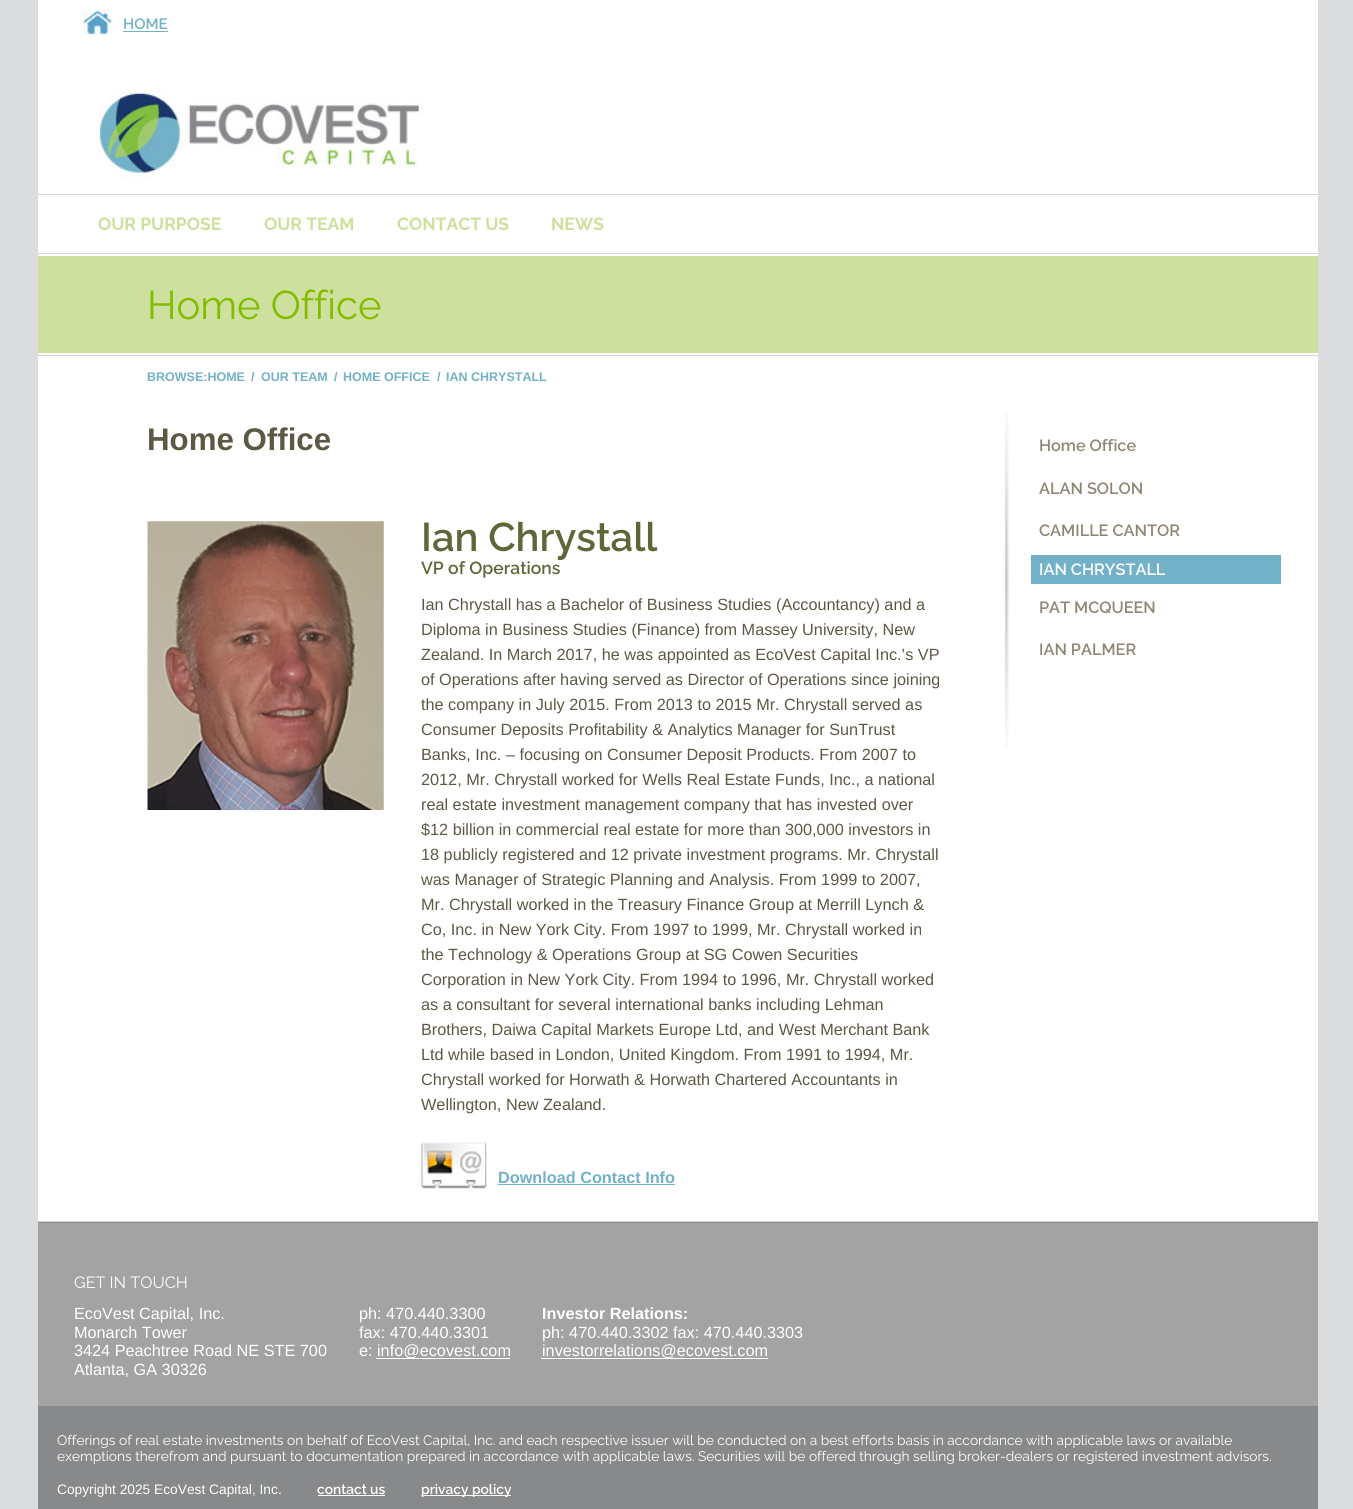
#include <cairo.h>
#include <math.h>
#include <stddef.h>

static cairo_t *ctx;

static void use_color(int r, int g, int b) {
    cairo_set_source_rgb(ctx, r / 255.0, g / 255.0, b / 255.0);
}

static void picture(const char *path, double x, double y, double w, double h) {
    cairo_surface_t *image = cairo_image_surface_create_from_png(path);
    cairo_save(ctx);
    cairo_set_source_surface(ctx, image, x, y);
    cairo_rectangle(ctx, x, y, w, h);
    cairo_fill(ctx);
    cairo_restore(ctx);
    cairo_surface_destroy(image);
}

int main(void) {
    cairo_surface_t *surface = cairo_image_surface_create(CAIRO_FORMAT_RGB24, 1353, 1509);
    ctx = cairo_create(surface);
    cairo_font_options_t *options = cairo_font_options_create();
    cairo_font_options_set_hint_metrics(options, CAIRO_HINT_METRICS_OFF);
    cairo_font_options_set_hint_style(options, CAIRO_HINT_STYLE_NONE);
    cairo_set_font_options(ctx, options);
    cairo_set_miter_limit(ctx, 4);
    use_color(219, 220, 221);
    cairo_paint(ctx);
    use_color(135, 137, 139);
    cairo_rectangle(ctx, 38, 1222, 1280, 287);
    cairo_fill(ctx);
    use_color(255, 255, 255);
    cairo_rectangle(ctx, 38, 0, 1280, 1221);
    cairo_fill(ctx);
    picture("img1.png", 82, 10, 31, 25);
    cairo_select_font_face(ctx, "Raleway SemiBold", CAIRO_FONT_SLANT_NORMAL, CAIRO_FONT_WEIGHT_NORMAL);
    cairo_set_font_size(ctx, 15);
    use_color(114, 177, 200);
    cairo_move_to(ctx, 123, 29);
    cairo_show_text(ctx, "HOME");
    cairo_rectangle(ctx, 123, 31, 45, 1);
    cairo_fill(ctx);
    picture("img2.png", 98, 89, 324, 90);
    use_color(216, 215, 213);
    cairo_rectangle(ctx, 38, 194, 1280, 1);
    cairo_fill(ctx);
    cairo_rectangle(ctx, 38, 253, 1280, 1);
    cairo_fill(ctx);
    cairo_select_font_face(ctx, "Raleway", CAIRO_FONT_SLANT_NORMAL, CAIRO_FONT_WEIGHT_BOLD);
    cairo_set_font_size(ctx, 17.5);
    use_color(206, 224, 157);
    cairo_move_to(ctx, 98, 230);
    cairo_show_text(ctx, "OUR PURPOSE");
    cairo_move_to(ctx, 264, 230);
    cairo_show_text(ctx, "OUR TEAM");
    cairo_move_to(ctx, 397, 230);
    cairo_show_text(ctx, "CONTACT US");
    cairo_move_to(ctx, 551, 230);
    cairo_show_text(ctx, "NEWS");
    cairo_rectangle(ctx, 38, 256, 1280, 97);
    cairo_fill(ctx);
    cairo_select_font_face(ctx, "Raleway", CAIRO_FONT_SLANT_NORMAL, CAIRO_FONT_WEIGHT_NORMAL);
    cairo_set_font_size(ctx, 40);
    use_color(130, 188, 0);
    cairo_move_to(ctx, 147, 319);
    cairo_show_text(ctx, "Home Office");
    use_color(216, 215, 213);
    cairo_rectangle(ctx, 38, 355, 1280, 1);
    cairo_fill(ctx);
    cairo_select_font_face(ctx, "Liberation Sans", CAIRO_FONT_SLANT_NORMAL, CAIRO_FONT_WEIGHT_BOLD);
    cairo_set_font_size(ctx, 12.5);
    use_color(114, 177, 200);
    cairo_move_to(ctx, 147, 381);
    cairo_show_text(ctx, "BROWSE:HOME");
    cairo_move_to(ctx, 251, 381);
    cairo_show_text(ctx, "/");
    cairo_move_to(ctx, 261, 381);
    cairo_show_text(ctx, "OUR TEAM");
    cairo_move_to(ctx, 334, 381);
    cairo_show_text(ctx, "/");
    cairo_move_to(ctx, 343, 381);
    cairo_show_text(ctx, "HOME OFFICE");
    cairo_move_to(ctx, 437, 381);
    cairo_show_text(ctx, "/");
    cairo_move_to(ctx, 446, 381);
    cairo_show_text(ctx, "IAN CHRYSTALL");
    cairo_set_font_size(ctx, 31.25);
    use_color(93, 88, 68);
    cairo_move_to(ctx, 147, 450);
    cairo_show_text(ctx, "Home Office");
    picture("img3.png", 147, 521, 237, 289);
    cairo_select_font_face(ctx, "Raleway SemiBold", CAIRO_FONT_SLANT_NORMAL, CAIRO_FONT_WEIGHT_NORMAL);
    cairo_set_font_size(ctx, 40);
    use_color(96, 102, 55);
    cairo_move_to(ctx, 421, 551);
    cairo_show_text(ctx, "Ian Chrystall");
    cairo_set_font_size(ctx, 17.5);
    cairo_move_to(ctx, 421, 574);
    cairo_show_text(ctx, "VP of Operations");
    cairo_select_font_face(ctx, "Liberation Sans", CAIRO_FONT_SLANT_NORMAL, CAIRO_FONT_WEIGHT_NORMAL);
    cairo_set_font_size(ctx, 16.25);
    use_color(93, 88, 68);
    cairo_move_to(ctx, 421, 610);
    cairo_show_text(ctx, "Ian Chrystall has a Bachelor of Business Studies (Accountancy) and a");
    cairo_move_to(ctx, 421, 635);
    cairo_show_text(ctx, "Diploma in Business Studies (Finance) from Massey University, New");
    cairo_move_to(ctx, 421, 660);
    cairo_show_text(ctx, "Zealand. In March 2017, he was appointed as EcoVest Capital Inc.’s VP");
    cairo_move_to(ctx, 421, 685);
    cairo_show_text(ctx, "of Operations after having served as Director of Operations since joining");
    cairo_move_to(ctx, 421, 710);
    cairo_show_text(ctx, "the company in July 2015. From 2013 to 2015 Mr. Chrystall served as");
    cairo_move_to(ctx, 421, 735);
    cairo_show_text(ctx, "Consumer Deposits Profitability & Analytics Manager for SunTrust");
    cairo_move_to(ctx, 421, 760);
    cairo_show_text(ctx, "Banks, Inc. – focusing on Consumer Deposit Products. From 2007 to");
    cairo_move_to(ctx, 421, 785);
    cairo_show_text(ctx, "2012, Mr. Chrystall worked for Wells Real Estate Funds, Inc., a national");
    cairo_move_to(ctx, 421, 810);
    cairo_show_text(ctx, "real estate investment management company that has invested over");
    cairo_move_to(ctx, 421, 835);
    cairo_show_text(ctx, "$12 billion in commercial real estate for more than 300,000 investors in");
    cairo_move_to(ctx, 421, 860);
    cairo_show_text(ctx, "18 publicly registered and 12 private investment programs. Mr. Chrystall");
    cairo_move_to(ctx, 421, 885);
    cairo_show_text(ctx, "was Manager of Strategic Planning and Analysis. From 1999 to 2007,");
    cairo_move_to(ctx, 421, 910);
    cairo_show_text(ctx, "Mr. Chrystall worked in the Treasury Finance Group at Merrill Lynch &");
    cairo_move_to(ctx, 421, 935);
    cairo_show_text(ctx, "Co, Inc. in New York City. From 1997 to 1999, Mr. Chrystall worked in");
    cairo_move_to(ctx, 421, 960);
    cairo_show_text(ctx, "the Technology & Operations Group at SG Cowen Securities");
    cairo_move_to(ctx, 421, 985);
    cairo_show_text(ctx, "Corporation in New York City. From 1994 to 1996, Mr. Chrystall worked");
    cairo_move_to(ctx, 421, 1010);
    cairo_show_text(ctx, "as a consultant for several international banks including Lehman");
    cairo_move_to(ctx, 421, 1035);
    cairo_show_text(ctx, "Brothers, Daiwa Capital Markets Europe Ltd, and West Merchant Bank");
    cairo_move_to(ctx, 421, 1060);
    cairo_show_text(ctx, "Ltd while based in London, United Kingdom. From 1991 to 1994, Mr.");
    cairo_move_to(ctx, 421, 1085);
    cairo_show_text(ctx, "Chrystall worked for Horwath & Horwath Chartered Accountants in");
    cairo_move_to(ctx, 421, 1110);
    cairo_show_text(ctx, "Wellington, New Zealand.");
    picture("img4.png", 421, 1142, 66, 47);
    cairo_select_font_face(ctx, "Liberation Sans", CAIRO_FONT_SLANT_NORMAL, CAIRO_FONT_WEIGHT_BOLD);
    use_color(114, 177, 200);
    cairo_move_to(ctx, 498, 1183);
    cairo_show_text(ctx, "Download Contact Info");
    cairo_rectangle(ctx, 498, 1184, 177, 1);
    cairo_fill(ctx);
    picture("img5.png", 1005, 411, 4, 337);
    cairo_select_font_face(ctx, "Raleway SemiBold", CAIRO_FONT_SLANT_NORMAL, CAIRO_FONT_WEIGHT_NORMAL);
    use_color(144, 134, 117);
    cairo_move_to(ctx, 1039, 451);
    cairo_show_text(ctx, "Home Office");
    cairo_move_to(ctx, 1039, 494);
    cairo_show_text(ctx, "ALAN SOLON");
    cairo_move_to(ctx, 1039, 536);
    cairo_show_text(ctx, "CAMILLE CANTOR");
    use_color(114, 177, 200);
    cairo_rectangle(ctx, 1031, 555, 250, 29);
    cairo_fill(ctx);
    use_color(255, 255, 255);
    cairo_move_to(ctx, 1039, 575);
    cairo_show_text(ctx, "IAN CHRYSTALL");
    use_color(144, 134, 117);
    cairo_move_to(ctx, 1039, 613);
    cairo_show_text(ctx, "PAT MCQUEEN");
    cairo_move_to(ctx, 1039, 655);
    cairo_show_text(ctx, "IAN PALMER");
    use_color(216, 215, 213);
    cairo_rectangle(ctx, 38, 1221, 1280, 1);
    cairo_fill(ctx);
    use_color(163, 163, 163);
    cairo_rectangle(ctx, 38, 1223, 1280, 183);
    cairo_fill(ctx);
    cairo_select_font_face(ctx, "Raleway", CAIRO_FONT_SLANT_NORMAL, CAIRO_FONT_WEIGHT_NORMAL);
    use_color(255, 255, 255);
    cairo_move_to(ctx, 74, 1288);
    cairo_show_text(ctx, "GET IN TOUCH");
    cairo_select_font_face(ctx, "Liberation Sans", CAIRO_FONT_SLANT_NORMAL, CAIRO_FONT_WEIGHT_NORMAL);
    cairo_move_to(ctx, 74, 1319);
    cairo_show_text(ctx, "EcoVest Capital, Inc.");
    cairo_move_to(ctx, 74, 1338);
    cairo_show_text(ctx, "Monarch Tower");
    cairo_move_to(ctx, 74, 1356);
    cairo_show_text(ctx, "3424 Peachtree Road NE STE 700");
    cairo_move_to(ctx, 74, 1375);
    cairo_show_text(ctx, "Atlanta, GA 30326");
    cairo_move_to(ctx, 359, 1319);
    cairo_show_text(ctx, "ph: 470.440.3300");
    cairo_move_to(ctx, 359, 1338);
    cairo_show_text(ctx, "fax: 470.440.3301");
    cairo_move_to(ctx, 359, 1356);
    cairo_show_text(ctx, "e:");
    cairo_rectangle(ctx, 376, 1358, 134, 1);
    cairo_fill(ctx);
    cairo_move_to(ctx, 377, 1356);
    cairo_show_text(ctx, "info@ecovest.com");
    cairo_select_font_face(ctx, "Liberation Sans", CAIRO_FONT_SLANT_NORMAL, CAIRO_FONT_WEIGHT_BOLD);
    cairo_move_to(ctx, 542, 1319);
    cairo_show_text(ctx, "Investor Relations:");
    cairo_select_font_face(ctx, "Liberation Sans", CAIRO_FONT_SLANT_NORMAL, CAIRO_FONT_WEIGHT_NORMAL);
    cairo_move_to(ctx, 542, 1338);
    cairo_show_text(ctx, "ph: 470.440.3302 fax: 470.440.3303");
    cairo_rectangle(ctx, 541, 1358, 227, 1);
    cairo_fill(ctx);
    cairo_move_to(ctx, 542, 1356);
    cairo_show_text(ctx, "investorrelations@ecovest.com");
    cairo_select_font_face(ctx, "Raleway", CAIRO_FONT_SLANT_NORMAL, CAIRO_FONT_WEIGHT_NORMAL);
    cairo_set_font_size(ctx, 13.75);
    cairo_move_to(ctx, 57, 1445);
    cairo_show_text(ctx, "Offerings of real estate investments on behalf of EcoVest Capital, Inc. and each respective issuer will be conducted on a best efforts basis in accordance with applicable laws or available");
    cairo_move_to(ctx, 57, 1461);
    cairo_show_text(ctx, "exemptions therefrom and pursuant to documentation prepared in accordance with applicable laws. Securities will be offered through selling broker-dealers or registered investment advisors.");
    cairo_select_font_face(ctx, "Liberation Sans", CAIRO_FONT_SLANT_NORMAL, CAIRO_FONT_WEIGHT_NORMAL);
    cairo_move_to(ctx, 57, 1494);
    cairo_show_text(ctx, "Copyright 2025 EcoVest Capital, Inc.");
    cairo_select_font_face(ctx, "Raleway SemiBold", CAIRO_FONT_SLANT_NORMAL, CAIRO_FONT_WEIGHT_NORMAL);
    cairo_move_to(ctx, 317, 1494);
    cairo_show_text(ctx, "contact us");
    cairo_rectangle(ctx, 318, 1495, 67, 1);
    cairo_fill(ctx);
    cairo_rectangle(ctx, 421, 1495, 90, 1);
    cairo_fill(ctx);
    cairo_move_to(ctx, 421, 1494);
    cairo_show_text(ctx, "privacy policy");
    cairo_surface_write_to_png(surface, "result.png");
    cairo_font_options_destroy(options);
    cairo_destroy(ctx);
    cairo_surface_destroy(surface);
    return 0;
}
